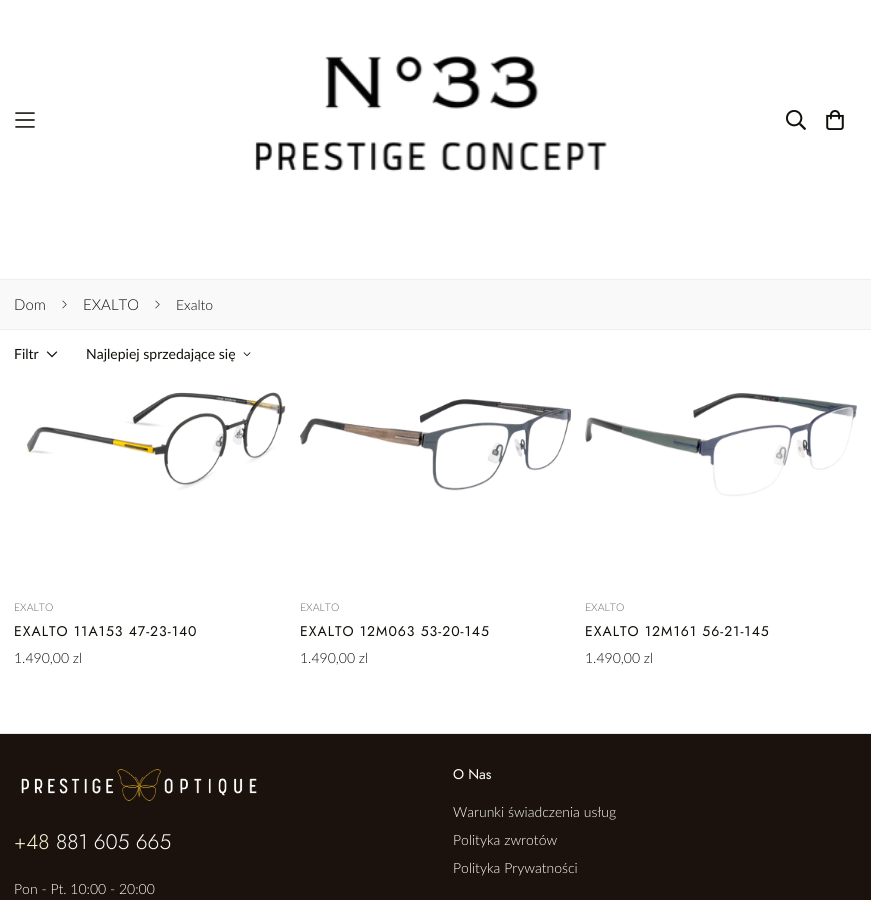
#include <cairo.h>
#include <math.h>
#include <stddef.h>

static cairo_t *ctx;

static void use_color(int r, int g, int b) {
    cairo_set_source_rgb(ctx, r / 255.0, g / 255.0, b / 255.0);
}

static void spaced_text(double x, double y, const char *s, double letter, double word) {
    cairo_move_to(ctx, x, y);
    while (*s) {
        char ch[5] = {0};
        int n = 0;
        do ch[n++] = *s++; while ((*s & 0xC0) == 0x80);
        cairo_show_text(ctx, ch);
        cairo_rel_move_to(ctx, letter + word * (*ch == ' '), 0);
    }
}

static void picture(const char *path, double x, double y, double w, double h) {
    cairo_surface_t *image = cairo_image_surface_create_from_png(path);
    cairo_save(ctx);
    cairo_set_source_surface(ctx, image, x, y);
    cairo_rectangle(ctx, x, y, w, h);
    cairo_fill(ctx);
    cairo_restore(ctx);
    cairo_surface_destroy(image);
}

int main(void) {
    cairo_surface_t *surface = cairo_image_surface_create(CAIRO_FORMAT_RGB24, 871, 900);
    ctx = cairo_create(surface);
    cairo_font_options_t *options = cairo_font_options_create();
    cairo_font_options_set_hint_metrics(options, CAIRO_HINT_METRICS_OFF);
    cairo_font_options_set_hint_style(options, CAIRO_HINT_STYLE_NONE);
    cairo_set_font_options(ctx, options);
    cairo_set_miter_limit(ctx, 4);
    use_color(255, 255, 255);
    cairo_paint(ctx);
    picture("img1.png", 15, 112, 20, 16);
    picture("img2.png", 255, 56, 352, 116);
    picture("img3.png", 786, 110, 20, 20);
    picture("img4.png", 826, 110, 18, 20);
    use_color(238, 238, 238);
    cairo_rectangle(ctx, 0, 279, 871, 1);
    cairo_fill(ctx);
    cairo_rectangle(ctx, 0, 329, 871, 1);
    cairo_fill(ctx);
    use_color(249, 249, 249);
    cairo_rectangle(ctx, 0, 280, 871, 49);
    cairo_fill(ctx);
    cairo_select_font_face(ctx, "Lato Light", CAIRO_FONT_SLANT_NORMAL, CAIRO_FONT_WEIGHT_NORMAL);
    cairo_set_font_size(ctx, 15);
    use_color(16, 14, 9);
    cairo_move_to(ctx, 14, 310);
    cairo_show_text(ctx, "Dom");
    picture("img5.png", 62, 300, 5, 9);
    cairo_move_to(ctx, 83, 310);
    cairo_show_text(ctx, "EXALTO");
    picture("img5.png", 155, 300, 5, 9);
    cairo_set_font_size(ctx, 14);
    cairo_move_to(ctx, 176, 310);
    cairo_show_text(ctx, "Exalto");
    cairo_select_font_face(ctx, "Lato", CAIRO_FONT_SLANT_NORMAL, CAIRO_FONT_WEIGHT_NORMAL);
    cairo_move_to(ctx, 14, 359);
    cairo_show_text(ctx, "Filtr");
    picture("img6.png", 46, 351, 12, 7);
    cairo_move_to(ctx, 86, 359);
    cairo_show_text(ctx, "Najlepiej sprzedające się");
    picture("img7.png", 243, 352, 8, 5);
    picture("img8.png", 26, 392, 260, 98);
    cairo_select_font_face(ctx, "Lato Light", CAIRO_FONT_SLANT_NORMAL, CAIRO_FONT_WEIGHT_NORMAL);
    cairo_set_font_size(ctx, 10.5);
    use_color(102, 102, 102);
    cairo_move_to(ctx, 14, 611);
    cairo_show_text(ctx, "EXALTO");
    cairo_select_font_face(ctx, "Jost", CAIRO_FONT_SLANT_NORMAL, CAIRO_FONT_WEIGHT_NORMAL);
    cairo_set_font_size(ctx, 14);
    use_color(16, 14, 9);
    spaced_text(14, 636, "EXALTO 11A153 47-23-140", 1, 0);
    cairo_select_font_face(ctx, "Lato Light", CAIRO_FONT_SLANT_NORMAL, CAIRO_FONT_WEIGHT_NORMAL);
    cairo_move_to(ctx, 14, 663);
    cairo_show_text(ctx, "1.490,00 zl");
    picture("img9.png", 300, 399, 271, 92);
    cairo_set_font_size(ctx, 10.5);
    use_color(102, 102, 102);
    cairo_move_to(ctx, 300, 611);
    cairo_show_text(ctx, "EXALTO");
    cairo_select_font_face(ctx, "Jost", CAIRO_FONT_SLANT_NORMAL, CAIRO_FONT_WEIGHT_NORMAL);
    cairo_set_font_size(ctx, 14);
    use_color(16, 14, 9);
    spaced_text(300, 636, "EXALTO 12M063 53-20-145", 1, 0);
    cairo_select_font_face(ctx, "Lato Light", CAIRO_FONT_SLANT_NORMAL, CAIRO_FONT_WEIGHT_NORMAL);
    cairo_move_to(ctx, 300, 663);
    cairo_show_text(ctx, "1.490,00 zl");
    picture("img10.png", 585, 393, 272, 104);
    cairo_set_font_size(ctx, 10.5);
    use_color(102, 102, 102);
    cairo_move_to(ctx, 585, 611);
    cairo_show_text(ctx, "EXALTO");
    cairo_select_font_face(ctx, "Jost", CAIRO_FONT_SLANT_NORMAL, CAIRO_FONT_WEIGHT_NORMAL);
    cairo_set_font_size(ctx, 14);
    use_color(16, 14, 9);
    spaced_text(585, 636, "EXALTO 12M161 56-21-145", 1, 0);
    cairo_select_font_face(ctx, "Lato Light", CAIRO_FONT_SLANT_NORMAL, CAIRO_FONT_WEIGHT_NORMAL);
    cairo_move_to(ctx, 585, 663);
    cairo_show_text(ctx, "1.490,00 zl");
    use_color(229, 231, 235);
    cairo_rectangle(ctx, 0, 733, 871, 1);
    cairo_fill(ctx);
    use_color(27, 18, 13);
    cairo_rectangle(ctx, 0, 734, 871, 166);
    cairo_fill(ctx);
    picture("img11.png", 21, 769, 236, 32);
    cairo_select_font_face(ctx, "Jost Light", CAIRO_FONT_SLANT_NORMAL, CAIRO_FONT_WEIGHT_NORMAL);
    cairo_set_font_size(ctx, 21);
    use_color(250, 244, 211);
    cairo_move_to(ctx, 14, 849);
    cairo_show_text(ctx, "+48");
    use_color(255, 255, 255);
    cairo_move_to(ctx, 56, 849);
    cairo_show_text(ctx, "881 605 665");
    cairo_select_font_face(ctx, "Lato Light", CAIRO_FONT_SLANT_NORMAL, CAIRO_FONT_WEIGHT_NORMAL);
    cairo_set_font_size(ctx, 14);
    cairo_move_to(ctx, 14, 894);
    cairo_show_text(ctx, "Pon - Pt. 10:00 - 20:00");
    cairo_select_font_face(ctx, "Jost", CAIRO_FONT_SLANT_NORMAL, CAIRO_FONT_WEIGHT_NORMAL);
    cairo_move_to(ctx, 453, 779);
    cairo_show_text(ctx, "O Nas");
    cairo_select_font_face(ctx, "Lato Light", CAIRO_FONT_SLANT_NORMAL, CAIRO_FONT_WEIGHT_NORMAL);
    cairo_move_to(ctx, 453, 817);
    cairo_show_text(ctx, "Warunki świadczenia usług");
    cairo_move_to(ctx, 453, 845);
    cairo_show_text(ctx, "Polityka zwrotów");
    cairo_move_to(ctx, 453, 873);
    cairo_show_text(ctx, "Polityka Prywatności");
    cairo_surface_write_to_png(surface, "result.png");
    cairo_font_options_destroy(options);
    cairo_destroy(ctx);
    cairo_surface_destroy(surface);
    return 0;
}
